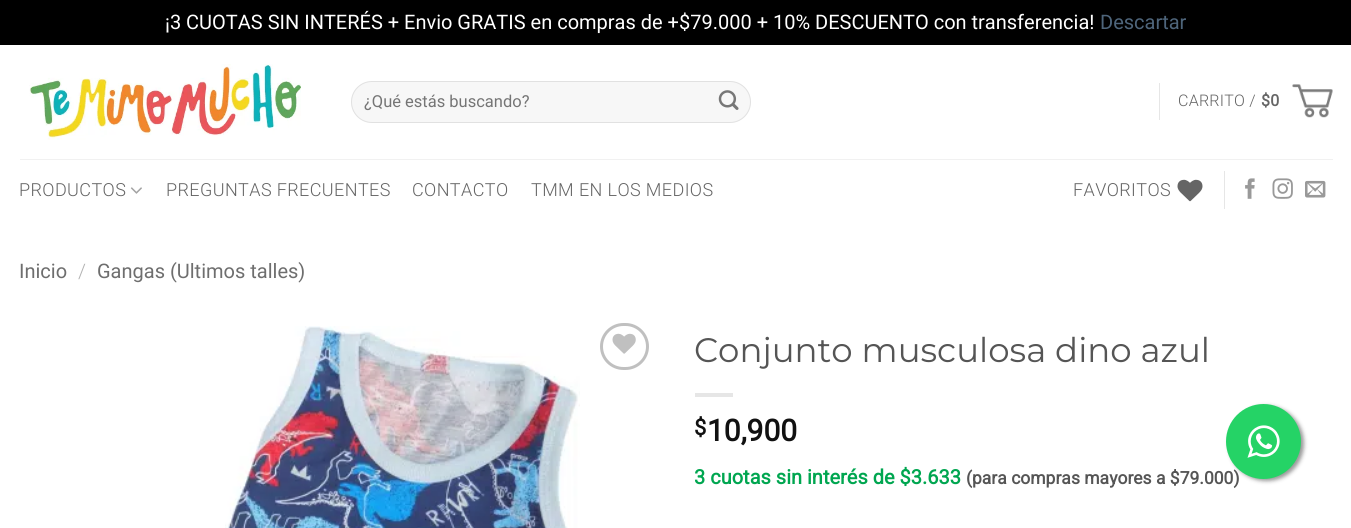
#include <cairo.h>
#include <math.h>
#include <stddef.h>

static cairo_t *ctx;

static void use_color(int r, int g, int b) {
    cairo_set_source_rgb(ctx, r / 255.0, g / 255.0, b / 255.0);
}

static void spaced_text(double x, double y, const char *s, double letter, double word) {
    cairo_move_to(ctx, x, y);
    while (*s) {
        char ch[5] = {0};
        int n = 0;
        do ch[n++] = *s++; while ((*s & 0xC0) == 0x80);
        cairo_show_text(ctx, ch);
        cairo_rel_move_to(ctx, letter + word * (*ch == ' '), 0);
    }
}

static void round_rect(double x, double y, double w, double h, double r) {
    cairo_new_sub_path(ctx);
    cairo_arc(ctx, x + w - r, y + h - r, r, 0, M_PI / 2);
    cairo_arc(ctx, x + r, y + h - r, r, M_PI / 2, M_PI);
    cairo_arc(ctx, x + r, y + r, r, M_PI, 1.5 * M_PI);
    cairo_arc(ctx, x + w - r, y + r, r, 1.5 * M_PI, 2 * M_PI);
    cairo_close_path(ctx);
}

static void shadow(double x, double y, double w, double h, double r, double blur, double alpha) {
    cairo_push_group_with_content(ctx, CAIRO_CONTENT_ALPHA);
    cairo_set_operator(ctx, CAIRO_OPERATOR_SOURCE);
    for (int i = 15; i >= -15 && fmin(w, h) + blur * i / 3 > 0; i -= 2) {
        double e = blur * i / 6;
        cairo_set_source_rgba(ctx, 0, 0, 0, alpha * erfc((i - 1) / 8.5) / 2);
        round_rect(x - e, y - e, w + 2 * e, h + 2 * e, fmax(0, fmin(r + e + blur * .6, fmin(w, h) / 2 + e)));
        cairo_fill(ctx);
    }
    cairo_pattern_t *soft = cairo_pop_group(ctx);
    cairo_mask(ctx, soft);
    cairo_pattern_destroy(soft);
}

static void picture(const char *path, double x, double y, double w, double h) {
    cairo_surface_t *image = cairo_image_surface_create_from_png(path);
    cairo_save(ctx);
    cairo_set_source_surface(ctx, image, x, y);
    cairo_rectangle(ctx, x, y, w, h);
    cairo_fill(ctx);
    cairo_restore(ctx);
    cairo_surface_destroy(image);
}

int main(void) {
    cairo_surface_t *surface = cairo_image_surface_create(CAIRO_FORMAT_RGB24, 1351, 528);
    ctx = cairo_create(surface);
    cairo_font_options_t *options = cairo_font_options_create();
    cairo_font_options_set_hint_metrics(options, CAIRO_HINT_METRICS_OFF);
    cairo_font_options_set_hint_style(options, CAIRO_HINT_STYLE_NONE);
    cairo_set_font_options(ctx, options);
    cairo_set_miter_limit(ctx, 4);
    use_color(0, 0, 0);
    cairo_paint(ctx);
    cairo_select_font_face(ctx, "Roboto", CAIRO_FONT_SLANT_NORMAL, CAIRO_FONT_WEIGHT_NORMAL);
    cairo_set_font_size(ctx, 20);
    use_color(255, 255, 255);
    cairo_move_to(ctx, 165, 29);
    cairo_show_text(ctx, "¡3 CUOTAS SIN INTERÉS + Envio GRATIS en compras de +$79.000 + 10% DESCUENTO con transferencia!");
    use_color(78, 101, 123);
    cairo_move_to(ctx, 1100, 29);
    cairo_show_text(ctx, "Descartar");
    use_color(255, 255, 255);
    cairo_rectangle(ctx, 0, 45, 1351, 483);
    cairo_fill(ctx);
    picture("img1.png", 29, 64, 272, 76);
    use_color(247, 247, 247);
    round_rect(351, 81, 400, 42, 21);
    cairo_fill(ctx);
    round_rect(351.5, 81.5, 399, 41, 20.5);
    cairo_set_source_rgba(ctx, 0, 0, 0, 0.09);
    cairo_set_line_width(ctx, 1);
    cairo_stroke(ctx);
    cairo_set_font_size(ctx, 16.5);
    use_color(117, 117, 117);
    cairo_move_to(ctx, 364, 107);
    cairo_show_text(ctx, "¿Qué estás buscando?");
    picture("img2.png", 718, 90, 21, 20);
    use_color(230, 230, 230);
    cairo_rectangle(ctx, 1159, 83, 1, 37);
    cairo_fill(ctx);
    cairo_select_font_face(ctx, "Roboto Light", CAIRO_FONT_SLANT_NORMAL, CAIRO_FONT_WEIGHT_NORMAL);
    cairo_set_font_size(ctx, 16);
    use_color(101, 101, 101);
    spaced_text(1178, 106, "CARRITO /", 0.25, 0);
    cairo_select_font_face(ctx, "Roboto", CAIRO_FONT_SLANT_NORMAL, CAIRO_FONT_WEIGHT_BOLD);
    spaced_text(1261, 106, "$0", 0.25, 0);
    picture("img3.png", 1292, 84, 41, 34);
    use_color(241, 241, 241);
    cairo_rectangle(ctx, 20, 159, 1313, 1);
    cairo_fill(ctx);
    cairo_select_font_face(ctx, "Roboto Light", CAIRO_FONT_SLANT_NORMAL, CAIRO_FONT_WEIGHT_NORMAL);
    cairo_set_font_size(ctx, 18);
    use_color(101, 101, 101);
    spaced_text(19, 196, "PRODUCTOS", 0.4, 0);
    picture("img4.png", 130, 187, 12, 7);
    spaced_text(166, 196, "PREGUNTAS FRECUENTES", 0.4, 0);
    spaced_text(412, 196, "CONTACTO", 0.4, 0);
    spaced_text(531, 196, "TMM EN LOS MEDIOS", 0.4, 0);
    spaced_text(1073, 196, "FAVORITOS", 0.4, 0);
    picture("img5.png", 1177, 179, 26, 23);
    use_color(230, 230, 230);
    cairo_rectangle(ctx, 1224, 171, 1, 38);
    cairo_fill(ctx);
    picture("img6.png", 1245, 178, 10, 21);
    picture("img7.png", 1272, 178, 21, 21);
    picture("img8.png", 1305, 180, 21, 18);
    cairo_select_font_face(ctx, "Roboto", CAIRO_FONT_SLANT_NORMAL, CAIRO_FONT_WEIGHT_NORMAL);
    cairo_set_font_size(ctx, 20);
    use_color(110, 110, 110);
    cairo_move_to(ctx, 19, 278);
    cairo_show_text(ctx, "Inicio");
    cairo_select_font_face(ctx, "Roboto Light", CAIRO_FONT_SLANT_NORMAL, CAIRO_FONT_WEIGHT_NORMAL);
    use_color(178, 178, 178);
    cairo_move_to(ctx, 78, 278);
    cairo_show_text(ctx, "/");
    cairo_select_font_face(ctx, "Roboto", CAIRO_FONT_SLANT_NORMAL, CAIRO_FONT_WEIGHT_NORMAL);
    use_color(110, 110, 110);
    cairo_move_to(ctx, 97, 278);
    cairo_show_text(ctx, "Gangas (Ultimos talles)");
    picture("img9.png", 225, 326, 355, 202);
    round_rect(601.5, 324.5, 46, 44, 22);
    use_color(192, 192, 192);
    cairo_set_line_width(ctx, 3);
    cairo_stroke(ctx);
    picture("img10.png", 612, 333, 24, 21);
    cairo_select_font_face(ctx, "Montserrat Thin", CAIRO_FONT_SLANT_NORMAL, CAIRO_FONT_WEIGHT_NORMAL);
    cairo_set_font_size(ctx, 34);
    use_color(85, 85, 85);
    cairo_move_to(ctx, 694, 362);
    cairo_show_text(ctx, "Conjunto musculosa dino azul");
    use_color(230, 230, 230);
    cairo_rectangle(ctx, 695, 393, 38, 4);
    cairo_fill(ctx);
    cairo_select_font_face(ctx, "Roboto", CAIRO_FONT_SLANT_NORMAL, CAIRO_FONT_WEIGHT_BOLD);
    cairo_set_font_size(ctx, 22);
    use_color(17, 17, 17);
    cairo_move_to(ctx, 694, 435);
    cairo_show_text(ctx, "$");
    cairo_set_font_size(ctx, 30);
    cairo_move_to(ctx, 707, 441);
    cairo_show_text(ctx, "10,900");
    cairo_set_font_size(ctx, 20);
    use_color(0, 166, 80);
    cairo_move_to(ctx, 694, 484);
    cairo_show_text(ctx, "3 cuotas sin interés de $3.633");
    cairo_set_font_size(ctx, 17.5);
    use_color(85, 85, 85);
    cairo_move_to(ctx, 966, 484);
    cairo_show_text(ctx, "(para compras mayores a $79.000)");
    use_color(153, 153, 153);
    shadow(1229, 406, 75, 75, 37.5, 2, 1);
    use_color(37, 211, 102);
    cairo_arc(ctx, 1263.5, 441.5, 37.5, 0, 2 * M_PI);
    cairo_fill(ctx);
    picture("img11.png", 1247, 425, 33, 33);
    cairo_surface_write_to_png(surface, "result.png");
    cairo_font_options_destroy(options);
    cairo_destroy(ctx);
    cairo_surface_destroy(surface);
    return 0;
}
